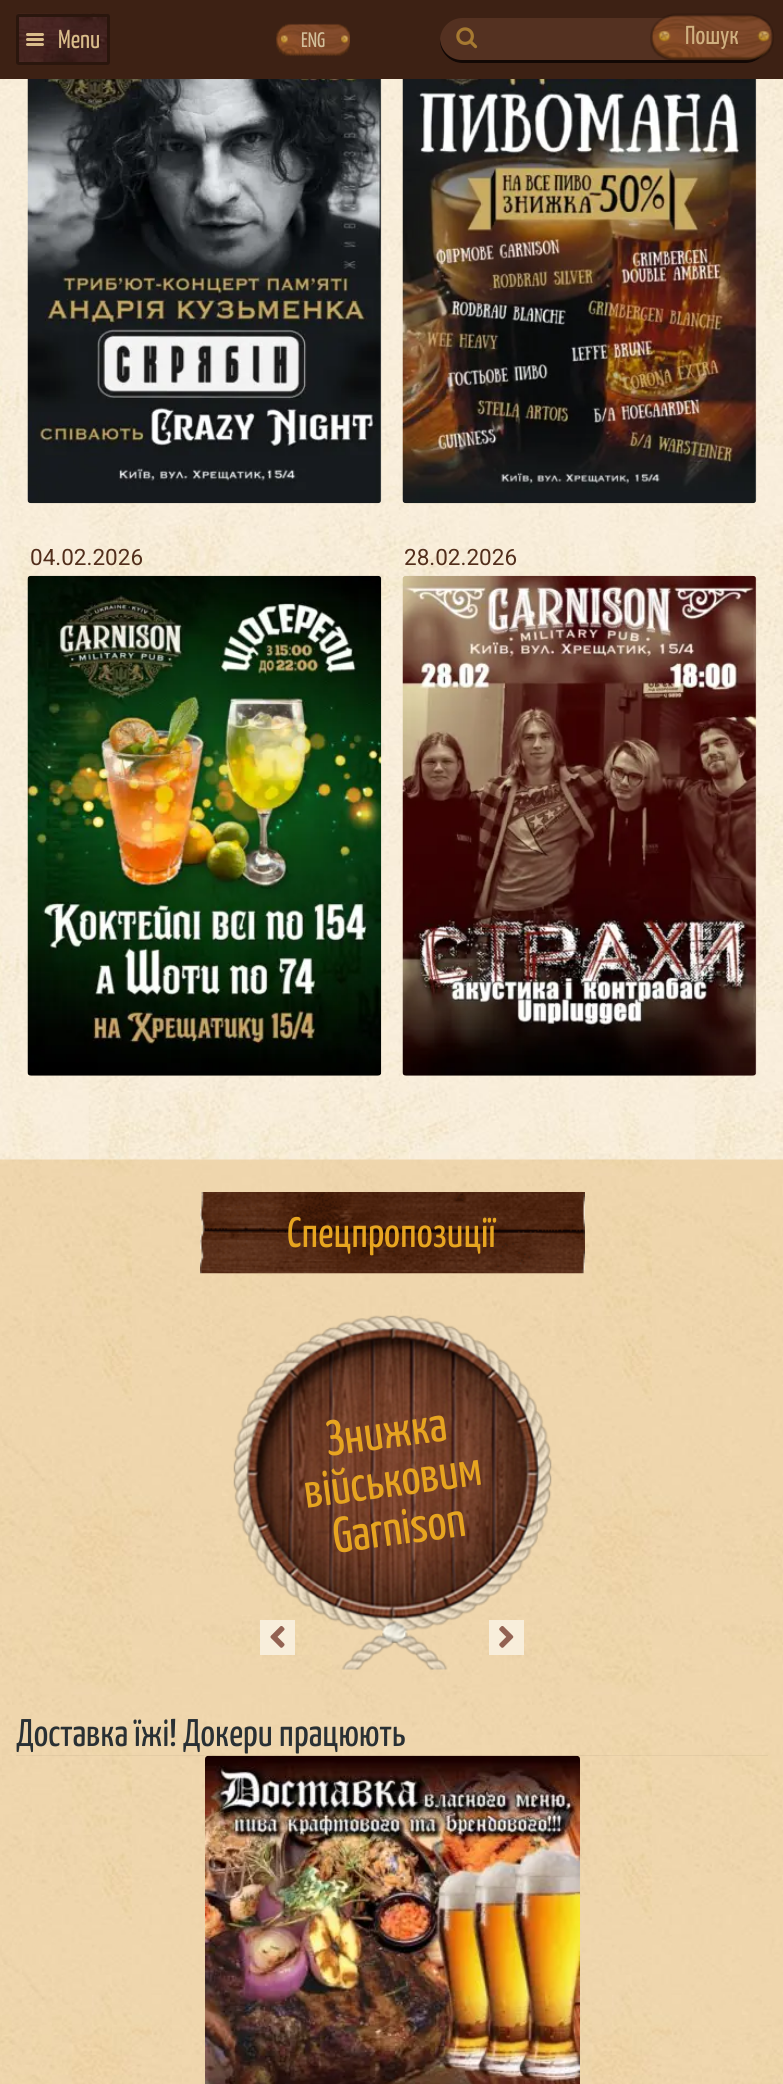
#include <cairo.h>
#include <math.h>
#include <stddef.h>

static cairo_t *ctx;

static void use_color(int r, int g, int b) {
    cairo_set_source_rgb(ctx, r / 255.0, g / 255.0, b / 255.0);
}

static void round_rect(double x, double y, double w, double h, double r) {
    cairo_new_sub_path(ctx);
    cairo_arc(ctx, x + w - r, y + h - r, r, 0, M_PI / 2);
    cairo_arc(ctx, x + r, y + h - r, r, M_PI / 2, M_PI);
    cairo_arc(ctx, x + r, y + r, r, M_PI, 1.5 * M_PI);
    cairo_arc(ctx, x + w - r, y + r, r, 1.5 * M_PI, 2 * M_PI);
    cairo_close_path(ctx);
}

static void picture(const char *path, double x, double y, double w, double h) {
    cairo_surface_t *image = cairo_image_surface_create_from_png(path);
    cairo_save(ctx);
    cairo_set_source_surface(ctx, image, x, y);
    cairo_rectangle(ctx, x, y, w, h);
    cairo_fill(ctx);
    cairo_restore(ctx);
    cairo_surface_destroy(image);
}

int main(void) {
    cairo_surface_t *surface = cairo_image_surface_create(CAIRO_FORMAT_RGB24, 783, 2084);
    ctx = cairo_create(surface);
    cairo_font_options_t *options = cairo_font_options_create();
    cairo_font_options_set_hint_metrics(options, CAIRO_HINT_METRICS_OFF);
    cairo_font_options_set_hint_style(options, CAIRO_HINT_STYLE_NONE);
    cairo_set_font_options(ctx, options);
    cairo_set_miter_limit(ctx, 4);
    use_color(255, 255, 255);
    cairo_paint(ctx);
    use_color(61, 33, 20);
    cairo_rectangle(ctx, 0, 0, 783, 79);
    cairo_fill(ctx);
    picture("img1.png", 16, 13, 94, 52);
    round_rect(17.5, 15.5, 91, 48, 1);
    use_color(42, 22, 13);
    cairo_set_line_width(ctx, 3);
    cairo_stroke(ctx);
    use_color(217, 188, 138);
    round_rect(26, 33, 18, 3, 1.5);
    cairo_fill(ctx);
    round_rect(26, 38, 18, 3, 1.5);
    cairo_fill(ctx);
    cairo_select_font_face(ctx, "Yanone Kaffeesatz", CAIRO_FONT_SLANT_NORMAL, CAIRO_FONT_WEIGHT_NORMAL);
    cairo_set_font_size(ctx, 26);
    cairo_move_to(ctx, 58, 48);
    cairo_show_text(ctx, "Menu");
    round_rect(26, 43, 18, 3, 1.5);
    cairo_fill(ctx);
    picture("img2.png", 276, 23, 74, 33);
    cairo_set_font_size(ctx, 21);
    use_color(211, 192, 156);
    cairo_move_to(ctx, 301, 47);
    cairo_show_text(ctx, "ENG");
    use_color(84, 49, 33);
    round_rect(440, 18, 328, 45, 22.5);
    cairo_fill(ctx);
    use_color(18, 8, 5);
    cairo_new_path(ctx);
    cairo_move_to(ctx, 440, 39);
    cairo_curve_to(ctx, 439, 52, 450, 63, 462, 63);
    cairo_line_to(ctx, 746, 63);
    cairo_curve_to(ctx, 758, 63, 769, 52, 768, 39);
    cairo_curve_to(ctx, 767, 51, 757, 60, 745, 60);
    cairo_line_to(ctx, 462, 60);
    cairo_curve_to(ctx, 450, 60, 441, 51, 440, 39);
    cairo_close_path(ctx);
    cairo_fill(ctx);
    picture("img3.png", 456, 27, 22, 22);
    picture("img4.png", 650, 13, 124, 48);
    cairo_set_font_size(ctx, 26);
    use_color(208, 176, 128);
    cairo_move_to(ctx, 685, 44);
    cairo_show_text(ctx, "Пошук");
    picture("img5.png", 0, 79, 783, 1081);
    picture("img6.png", 27, 79, 355, 425);
    picture("img7.png", 402, 79, 355, 425);
    cairo_select_font_face(ctx, "Roboto", CAIRO_FONT_SLANT_NORMAL, CAIRO_FONT_WEIGHT_NORMAL);
    cairo_set_font_size(ctx, 22.5);
    use_color(82, 46, 27);
    cairo_move_to(ctx, 30, 565);
    cairo_show_text(ctx, "04.02.2026");
    picture("img8.png", 27, 575, 355, 501);
    cairo_move_to(ctx, 404, 565);
    cairo_show_text(ctx, "28.02.2026");
    picture("img9.png", 402, 575, 355, 501);
    picture("img10.png", 0, 1159, 783, 925);
    picture("img11.png", 200, 1192, 385, 82);
    cairo_select_font_face(ctx, "Yanone Kaffeesatz", CAIRO_FONT_SLANT_NORMAL, CAIRO_FONT_WEIGHT_NORMAL);
    cairo_set_font_size(ctx, 42.5);
    use_color(231, 165, 32);
    cairo_move_to(ctx, 287, 1247);
    cairo_show_text(ctx, "Спецпропозиції");
    picture("img12.png", 233, 1315, 319, 355);
    cairo_set_font_size(ctx, 50);
    cairo_save(ctx);
    cairo_translate(ctx, 328, 1456);
    cairo_rotate(ctx, -7.6 * M_PI / 180);
    cairo_move_to(ctx, 0, 0);
    cairo_show_text(ctx, "Знижка");
    cairo_restore(ctx);
    cairo_save(ctx);
    cairo_translate(ctx, 306, 1508);
    cairo_rotate(ctx, -7.6 * M_PI / 180);
    cairo_move_to(ctx, 0, 0);
    cairo_show_text(ctx, "військовим");
    cairo_restore(ctx);
    cairo_save(ctx);
    cairo_translate(ctx, 335, 1553);
    cairo_rotate(ctx, -7.6 * M_PI / 180);
    cairo_move_to(ctx, 0, 0);
    cairo_show_text(ctx, "Garnison");
    cairo_restore(ctx);
    use_color(248, 238, 219);
    cairo_rectangle(ctx, 260, 1620, 35, 35);
    cairo_fill(ctx);
    picture("img13.png", 270, 1626, 15, 22);
    cairo_rectangle(ctx, 489, 1620, 35, 35);
    cairo_fill(ctx);
    picture("img14.png", 499, 1626, 15, 22);
    cairo_set_source_rgba(ctx, 0, 0, 0, 0.05);
    cairo_rectangle(ctx, 16, 1755, 752, 1);
    cairo_fill(ctx);
    cairo_set_font_size(ctx, 38.5);
    use_color(41, 48, 52);
    cairo_move_to(ctx, 16, 1746);
    cairo_show_text(ctx, "Доставка їжі! Докери працюють");
    picture("img15.png", 205, 1755, 375, 329);
    cairo_surface_write_to_png(surface, "result.png");
    cairo_font_options_destroy(options);
    cairo_destroy(ctx);
    cairo_surface_destroy(surface);
    return 0;
}
